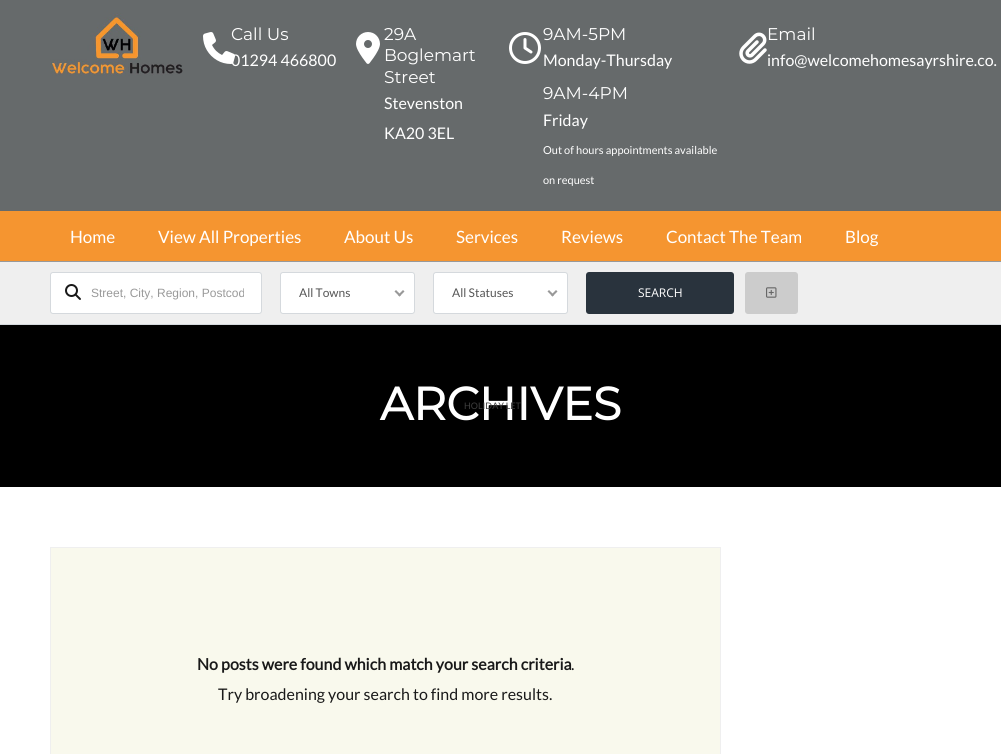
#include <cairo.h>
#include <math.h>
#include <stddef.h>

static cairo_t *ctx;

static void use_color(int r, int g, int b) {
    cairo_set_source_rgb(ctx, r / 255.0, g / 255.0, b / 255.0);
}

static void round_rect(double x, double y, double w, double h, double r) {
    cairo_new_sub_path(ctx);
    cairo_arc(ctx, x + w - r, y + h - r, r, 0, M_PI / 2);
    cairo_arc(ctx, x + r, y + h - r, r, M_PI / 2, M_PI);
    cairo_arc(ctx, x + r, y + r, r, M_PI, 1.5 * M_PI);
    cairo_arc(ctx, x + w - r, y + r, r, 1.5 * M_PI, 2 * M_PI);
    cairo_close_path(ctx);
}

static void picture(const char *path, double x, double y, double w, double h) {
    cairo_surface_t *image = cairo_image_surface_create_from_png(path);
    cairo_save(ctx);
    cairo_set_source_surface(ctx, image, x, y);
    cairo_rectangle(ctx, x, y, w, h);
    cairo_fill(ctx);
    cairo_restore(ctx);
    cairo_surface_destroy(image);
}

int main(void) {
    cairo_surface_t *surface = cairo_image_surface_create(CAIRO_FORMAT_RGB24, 1001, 754);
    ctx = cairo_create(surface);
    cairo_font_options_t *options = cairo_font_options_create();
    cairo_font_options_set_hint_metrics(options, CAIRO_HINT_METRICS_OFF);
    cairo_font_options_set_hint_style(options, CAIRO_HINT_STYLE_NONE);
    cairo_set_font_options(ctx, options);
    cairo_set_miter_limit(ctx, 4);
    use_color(255, 255, 255);
    cairo_paint(ctx);
    use_color(102, 106, 107);
    cairo_rectangle(ctx, 0, 0, 1001, 211);
    cairo_fill(ctx);
    picture("img1.png", 50, 13, 133, 63);
    picture("img2.png", 203, 32, 32, 32);
    cairo_select_font_face(ctx, "Montserrat Thin", CAIRO_FONT_SLANT_NORMAL, CAIRO_FONT_WEIGHT_NORMAL);
    cairo_set_font_size(ctx, 17);
    use_color(255, 255, 255);
    cairo_move_to(ctx, 231, 40);
    cairo_show_text(ctx, "Call Us");
    cairo_select_font_face(ctx, "Lato", CAIRO_FONT_SLANT_NORMAL, CAIRO_FONT_WEIGHT_NORMAL);
    cairo_set_font_size(ctx, 16);
    cairo_move_to(ctx, 231, 66);
    cairo_show_text(ctx, "01294 466800");
    picture("img3.png", 356, 32, 24, 32);
    cairo_select_font_face(ctx, "Montserrat Thin", CAIRO_FONT_SLANT_NORMAL, CAIRO_FONT_WEIGHT_NORMAL);
    cairo_set_font_size(ctx, 17);
    cairo_move_to(ctx, 384, 40);
    cairo_show_text(ctx, "29A");
    cairo_move_to(ctx, 384, 61);
    cairo_show_text(ctx, "Boglemart");
    cairo_move_to(ctx, 384, 83);
    cairo_show_text(ctx, "Street");
    cairo_select_font_face(ctx, "Lato", CAIRO_FONT_SLANT_NORMAL, CAIRO_FONT_WEIGHT_NORMAL);
    cairo_set_font_size(ctx, 16);
    cairo_move_to(ctx, 384, 109);
    cairo_show_text(ctx, "Stevenston");
    cairo_move_to(ctx, 384, 139);
    cairo_show_text(ctx, "KA20 3EL");
    picture("img4.png", 509, 32, 32, 32);
    cairo_select_font_face(ctx, "Montserrat Thin", CAIRO_FONT_SLANT_NORMAL, CAIRO_FONT_WEIGHT_NORMAL);
    cairo_set_font_size(ctx, 17);
    cairo_move_to(ctx, 543, 40);
    cairo_show_text(ctx, "9AM-5PM");
    cairo_select_font_face(ctx, "Lato", CAIRO_FONT_SLANT_NORMAL, CAIRO_FONT_WEIGHT_NORMAL);
    cairo_set_font_size(ctx, 16);
    cairo_move_to(ctx, 543, 66);
    cairo_show_text(ctx, "Monday-Thursday");
    cairo_select_font_face(ctx, "Montserrat Thin", CAIRO_FONT_SLANT_NORMAL, CAIRO_FONT_WEIGHT_NORMAL);
    cairo_set_font_size(ctx, 17);
    cairo_move_to(ctx, 543, 99);
    cairo_show_text(ctx, "9AM-4PM");
    cairo_select_font_face(ctx, "Lato", CAIRO_FONT_SLANT_NORMAL, CAIRO_FONT_WEIGHT_NORMAL);
    cairo_set_font_size(ctx, 16);
    cairo_move_to(ctx, 543, 126);
    cairo_show_text(ctx, "Friday");
    cairo_set_font_size(ctx, 11);
    cairo_move_to(ctx, 543, 154);
    cairo_show_text(ctx, "Out of hours appointments available");
    cairo_move_to(ctx, 543, 184);
    cairo_show_text(ctx, "on request");
    picture("img5.png", 739, 32, 28, 32);
    cairo_select_font_face(ctx, "Montserrat Thin", CAIRO_FONT_SLANT_NORMAL, CAIRO_FONT_WEIGHT_NORMAL);
    cairo_set_font_size(ctx, 17);
    cairo_move_to(ctx, 767, 40);
    cairo_show_text(ctx, "Email");
    cairo_select_font_face(ctx, "Lato", CAIRO_FONT_SLANT_NORMAL, CAIRO_FONT_WEIGHT_NORMAL);
    cairo_set_font_size(ctx, 16);
    cairo_move_to(ctx, 767, 66);
    cairo_show_text(ctx, "info@welcomehomesayrshire.co.");
    use_color(245, 149, 48);
    cairo_rectangle(ctx, 0, 211, 1001, 50);
    cairo_fill(ctx);
    use_color(153, 153, 153);
    cairo_rectangle(ctx, 0, 261, 1001, 1);
    cairo_fill(ctx);
    cairo_set_font_size(ctx, 17);
    use_color(255, 255, 255);
    cairo_move_to(ctx, 70, 243);
    cairo_show_text(ctx, "Home");
    cairo_move_to(ctx, 158, 243);
    cairo_show_text(ctx, "View All Properties");
    cairo_move_to(ctx, 344, 243);
    cairo_show_text(ctx, "About Us");
    cairo_move_to(ctx, 456, 243);
    cairo_show_text(ctx, "Services");
    cairo_move_to(ctx, 561, 243);
    cairo_show_text(ctx, "Reviews");
    cairo_move_to(ctx, 666, 243);
    cairo_show_text(ctx, "Contact The Team");
    cairo_move_to(ctx, 845, 243);
    cairo_show_text(ctx, "Blog");
    use_color(239, 239, 239);
    cairo_rectangle(ctx, 0, 262, 1001, 62);
    cairo_fill(ctx);
    use_color(213, 217, 221);
    cairo_rectangle(ctx, 0, 324, 1001, 1);
    cairo_fill(ctx);
    use_color(255, 255, 255);
    round_rect(50.5, 272.5, 211, 41, 2.5);
    cairo_fill_preserve(ctx);
    use_color(213, 217, 221);
    cairo_set_line_width(ctx, 1);
    cairo_stroke(ctx);
    picture("img6.png", 65, 284, 16, 16);
    cairo_select_font_face(ctx, "Liberation Sans", CAIRO_FONT_SLANT_NORMAL, CAIRO_FONT_WEIGHT_NORMAL);
    cairo_set_font_size(ctx, 12);
    use_color(153, 153, 153);
    cairo_move_to(ctx, 91, 297);
    cairo_show_text(ctx, "Street, City, Region, Postcod");
    use_color(255, 255, 255);
    round_rect(280.5, 272.5, 134, 41, 2.5);
    cairo_fill_preserve(ctx);
    use_color(213, 217, 221);
    cairo_stroke(ctx);
    cairo_select_font_face(ctx, "Lato", CAIRO_FONT_SLANT_NORMAL, CAIRO_FONT_WEIGHT_NORMAL);
    use_color(85, 85, 85);
    cairo_move_to(ctx, 299, 297);
    cairo_show_text(ctx, "All Towns");
    use_color(153, 153, 153);
    cairo_new_path(ctx);
    cairo_move_to(ctx, 403, 290);
    cairo_line_to(ctx, 404.5, 291.5);
    cairo_line_to(ctx, 399.5, 296.5);
    cairo_line_to(ctx, 398, 295);
    cairo_close_path(ctx);
    cairo_fill(ctx);
    cairo_new_path(ctx);
    cairo_move_to(ctx, 396, 290);
    cairo_line_to(ctx, 401, 295);
    cairo_line_to(ctx, 399.5, 296.5);
    cairo_line_to(ctx, 394.5, 291.5);
    cairo_close_path(ctx);
    cairo_fill(ctx);
    use_color(255, 255, 255);
    round_rect(433.5, 272.5, 134, 41, 2.5);
    cairo_fill_preserve(ctx);
    use_color(213, 217, 221);
    cairo_stroke(ctx);
    use_color(85, 85, 85);
    cairo_move_to(ctx, 452, 297);
    cairo_show_text(ctx, "All Statuses");
    use_color(153, 153, 153);
    cairo_new_path(ctx);
    cairo_move_to(ctx, 556, 290);
    cairo_line_to(ctx, 557.5, 291.5);
    cairo_line_to(ctx, 552.5, 296.5);
    cairo_line_to(ctx, 551, 295);
    cairo_close_path(ctx);
    cairo_fill(ctx);
    cairo_new_path(ctx);
    cairo_move_to(ctx, 549, 290);
    cairo_line_to(ctx, 554, 295);
    cairo_line_to(ctx, 552.5, 296.5);
    cairo_line_to(ctx, 547.5, 291.5);
    cairo_close_path(ctx);
    cairo_fill(ctx);
    use_color(0, 0, 0);
    cairo_rectangle(ctx, 0, 325, 1001, 162);
    cairo_fill(ctx);
    cairo_select_font_face(ctx, "Montserrat", CAIRO_FONT_SLANT_NORMAL, CAIRO_FONT_WEIGHT_BOLD);
    cairo_set_font_size(ctx, 46);
    use_color(255, 255, 255);
    cairo_move_to(ctx, 380, 420);
    cairo_show_text(ctx, "ARCHIVES");
    cairo_select_font_face(ctx, "Lato", CAIRO_FONT_SLANT_NORMAL, CAIRO_FONT_WEIGHT_NORMAL);
    cairo_set_font_size(ctx, 9);
    use_color(62, 62, 62);
    cairo_move_to(ctx, 464, 409);
    cairo_show_text(ctx, "HOLIDAY LET");
    use_color(41, 51, 61);
    round_rect(586, 272, 148, 42, 3);
    cairo_fill(ctx);
    cairo_select_font_face(ctx, "Open Sans", CAIRO_FONT_SLANT_NORMAL, CAIRO_FONT_WEIGHT_NORMAL);
    cairo_set_font_size(ctx, 12);
    use_color(255, 255, 255);
    cairo_move_to(ctx, 638, 297);
    cairo_show_text(ctx, "SEARCH");
    use_color(204, 204, 204);
    round_rect(745, 272, 53, 42, 3);
    cairo_fill(ctx);
    picture("img7.png", 766, 287, 11, 11);
    use_color(249, 249, 237);
    cairo_rectangle(ctx, 50.5, 547.5, 670, 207);
    cairo_fill_preserve(ctx);
    use_color(239, 239, 239);
    cairo_stroke(ctx);
    cairo_select_font_face(ctx, "Lato", CAIRO_FONT_SLANT_NORMAL, CAIRO_FONT_WEIGHT_BOLD);
    cairo_set_font_size(ctx, 16);
    use_color(25, 25, 25);
    cairo_move_to(ctx, 197, 670);
    cairo_show_text(ctx, "No posts were found which match your search criteria");
    cairo_select_font_face(ctx, "Lato", CAIRO_FONT_SLANT_NORMAL, CAIRO_FONT_WEIGHT_NORMAL);
    cairo_move_to(ctx, 571, 670);
    cairo_show_text(ctx, ".");
    cairo_move_to(ctx, 218, 700);
    cairo_show_text(ctx, "Try broadening your search to find more results.");
    cairo_surface_write_to_png(surface, "result.png");
    cairo_font_options_destroy(options);
    cairo_destroy(ctx);
    cairo_surface_destroy(surface);
    return 0;
}
